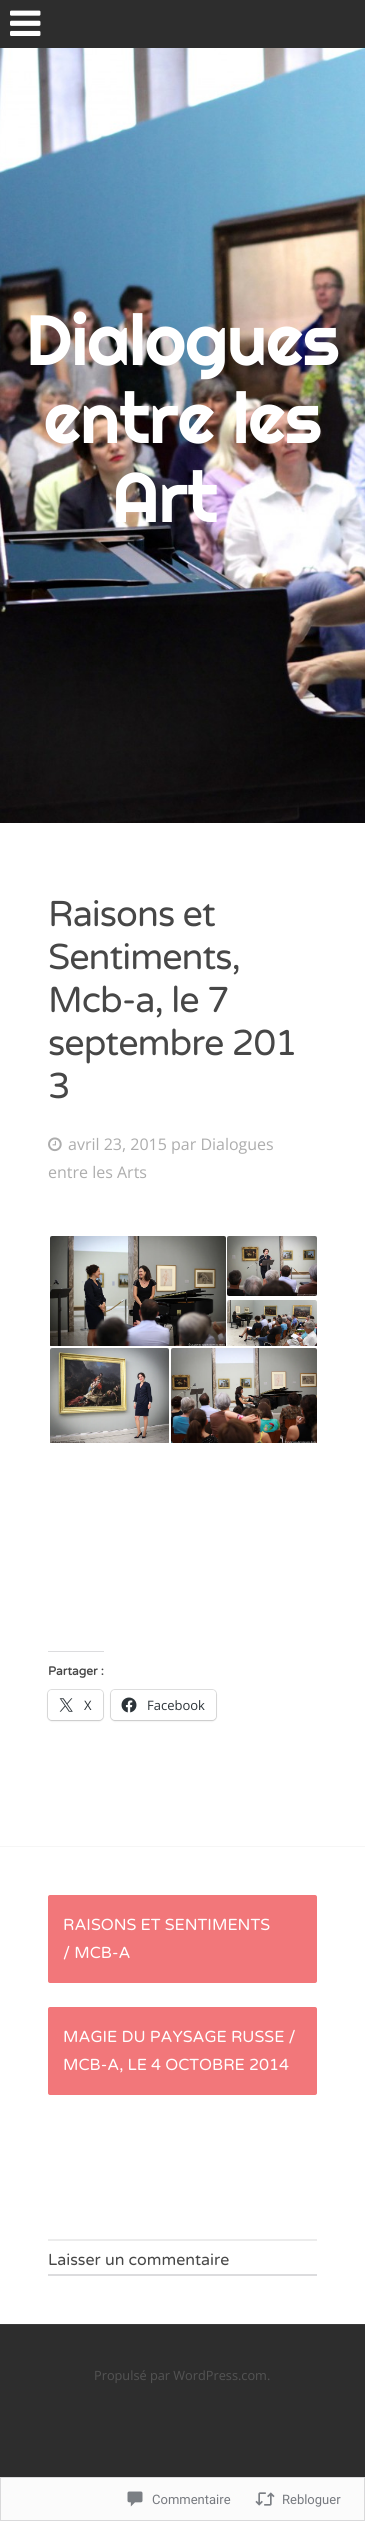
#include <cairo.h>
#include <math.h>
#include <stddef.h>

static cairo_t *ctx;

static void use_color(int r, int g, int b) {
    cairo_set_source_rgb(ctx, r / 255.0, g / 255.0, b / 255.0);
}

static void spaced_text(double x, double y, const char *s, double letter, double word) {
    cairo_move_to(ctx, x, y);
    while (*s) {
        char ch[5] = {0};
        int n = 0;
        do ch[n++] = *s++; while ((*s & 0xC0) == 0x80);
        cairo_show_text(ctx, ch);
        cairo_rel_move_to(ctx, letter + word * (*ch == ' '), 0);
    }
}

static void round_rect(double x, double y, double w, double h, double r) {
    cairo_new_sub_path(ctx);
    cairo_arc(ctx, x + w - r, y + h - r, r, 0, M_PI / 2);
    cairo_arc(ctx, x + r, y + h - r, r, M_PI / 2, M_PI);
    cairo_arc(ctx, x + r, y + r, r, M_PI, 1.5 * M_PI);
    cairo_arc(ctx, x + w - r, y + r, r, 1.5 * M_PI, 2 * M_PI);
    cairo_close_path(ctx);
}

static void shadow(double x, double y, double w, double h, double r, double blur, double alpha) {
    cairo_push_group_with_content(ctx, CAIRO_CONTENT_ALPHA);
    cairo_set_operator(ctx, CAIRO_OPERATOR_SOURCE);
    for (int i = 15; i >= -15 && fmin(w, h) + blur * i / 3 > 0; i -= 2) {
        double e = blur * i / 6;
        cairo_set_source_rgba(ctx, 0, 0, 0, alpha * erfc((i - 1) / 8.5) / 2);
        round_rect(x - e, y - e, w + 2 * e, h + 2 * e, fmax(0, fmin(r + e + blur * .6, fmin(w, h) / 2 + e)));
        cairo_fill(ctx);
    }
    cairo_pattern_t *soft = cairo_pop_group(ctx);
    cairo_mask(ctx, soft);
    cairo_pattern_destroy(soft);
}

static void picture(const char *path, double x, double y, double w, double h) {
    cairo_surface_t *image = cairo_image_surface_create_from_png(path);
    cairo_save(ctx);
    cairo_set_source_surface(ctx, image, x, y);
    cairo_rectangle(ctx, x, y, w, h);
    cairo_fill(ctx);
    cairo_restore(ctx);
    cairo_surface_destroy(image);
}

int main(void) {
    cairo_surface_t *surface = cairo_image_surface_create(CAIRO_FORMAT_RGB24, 365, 2521);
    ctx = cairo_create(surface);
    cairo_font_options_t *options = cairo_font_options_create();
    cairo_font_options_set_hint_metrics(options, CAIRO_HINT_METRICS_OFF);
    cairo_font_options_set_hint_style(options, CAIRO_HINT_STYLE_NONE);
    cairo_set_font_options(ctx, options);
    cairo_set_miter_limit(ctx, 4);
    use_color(45, 45, 45);
    cairo_paint(ctx);
    picture("img1.png", 10, 10, 31, 26);
    picture("img2.png", 0, 48, 365, 775);
    cairo_select_font_face(ctx, "Righteous", CAIRO_FONT_SLANT_NORMAL, CAIRO_FONT_WEIGHT_NORMAL);
    cairo_set_font_size(ctx, 71);
    use_color(255, 255, 255);
    spaced_text(26, 365, "Dialogues", -1, 0);
    spaced_text(44, 443, "entre les", -1, 0);
    spaced_text(112, 522, "Art", -1, 0);
    cairo_rectangle(ctx, 0, 823, 365, 1501);
    cairo_fill(ctx);
    use_color(246, 246, 246);
    cairo_rectangle(ctx, 0, 1846, 365, 1);
    cairo_fill(ctx);
    cairo_select_font_face(ctx, "Varela Round", CAIRO_FONT_SLANT_NORMAL, CAIRO_FONT_WEIGHT_NORMAL);
    cairo_set_font_size(ctx, 36);
    use_color(71, 71, 71);
    spaced_text(48, 926, "Raisons et", -1, 0);
    spaced_text(48, 969, "Sentiments,", -1, 0);
    spaced_text(48, 1012, "Mcb-a, le 7", -1, 0);
    spaced_text(48, 1055, "septembre 201", -1, 0);
    spaced_text(48, 1098, "3", -1, 0);
    picture("img3.png", 48, 1137, 14, 15);
    cairo_select_font_face(ctx, "Open Sans", CAIRO_FONT_SLANT_NORMAL, CAIRO_FONT_WEIGHT_NORMAL);
    cairo_set_font_size(ctx, 16);
    use_color(173, 173, 173);
    cairo_move_to(ctx, 68, 1150);
    cairo_show_text(ctx, "avril 23, 2015 par Dialogues");
    cairo_move_to(ctx, 48, 1178);
    cairo_show_text(ctx, "entre les Arts");
    picture("img4.png", 50, 1236, 176, 110);
    picture("img5.png", 227, 1236, 90, 60);
    picture("img6.png", 227, 1300, 90, 46);
    picture("img7.png", 50, 1348, 119, 95);
    picture("img8.png", 171, 1348, 146, 95);
    use_color(220, 220, 222);
    cairo_rectangle(ctx, 48, 1651, 56, 1);
    cairo_fill(ctx);
    cairo_select_font_face(ctx, "Varela Round", CAIRO_FONT_SLANT_NORMAL, CAIRO_FONT_WEIGHT_BOLD);
    cairo_set_font_size(ctx, 12);
    use_color(71, 71, 71);
    cairo_move_to(ctx, 48, 1675);
    cairo_show_text(ctx, "Partager :");
    round_rect(47.5, 1689.5, 56, 31, 4.5);
    use_color(224, 224, 224);
    cairo_set_line_width(ctx, 1);
    cairo_stroke(ctx);
    use_color(0, 0, 0);
    shadow(48, 1691, 55, 30, 4, 1, 0.12);
    use_color(255, 255, 255);
    round_rect(48, 1690, 55, 30, 4);
    cairo_fill(ctx);
    picture("img9.png", 59, 1698, 14, 14);
    cairo_select_font_face(ctx, "Open Sans", CAIRO_FONT_SLANT_NORMAL, CAIRO_FONT_WEIGHT_NORMAL);
    cairo_set_font_size(ctx, 13);
    use_color(44, 51, 56);
    cairo_move_to(ctx, 84, 1710);
    cairo_show_text(ctx, "X");
    round_rect(110.5, 1689.5, 106, 31, 4.5);
    use_color(224, 224, 224);
    cairo_stroke(ctx);
    use_color(0, 0, 0);
    shadow(111, 1691, 105, 30, 4, 1, 0.12);
    use_color(255, 255, 255);
    round_rect(111, 1690, 105, 30, 4);
    cairo_fill(ctx);
    picture("img10.png", 121, 1697, 16, 16);
    use_color(44, 51, 56);
    cairo_move_to(ctx, 147, 1710);
    cairo_show_text(ctx, "Facebook");
    use_color(242, 119, 122);
    round_rect(48, 1895, 269, 88, 2);
    cairo_fill(ctx);
    cairo_select_font_face(ctx, "Varela Round", CAIRO_FONT_SLANT_NORMAL, CAIRO_FONT_WEIGHT_NORMAL);
    cairo_set_font_size(ctx, 16);
    use_color(255, 255, 255);
    cairo_move_to(ctx, 63, 1930);
    cairo_show_text(ctx, "RAISONS ET SENTIMENTS");
    cairo_move_to(ctx, 63, 1958);
    cairo_show_text(ctx, "/ MCB-A");
    use_color(242, 119, 122);
    round_rect(48, 2007, 269, 88, 2);
    cairo_fill(ctx);
    use_color(255, 255, 255);
    cairo_move_to(ctx, 63, 2042);
    cairo_show_text(ctx, "MAGIE DU PAYSAGE RUSSE /");
    cairo_move_to(ctx, 63, 2070);
    cairo_show_text(ctx, "MCB-A, LE 4 OCTOBRE 2014");
    use_color(236, 236, 236);
    cairo_rectangle(ctx, 48, 2239, 269, 2);
    cairo_fill(ctx);
    use_color(71, 71, 71);
    cairo_move_to(ctx, 48, 2265);
    cairo_show_text(ctx, "Laisser un commentaire");
    use_color(220, 220, 222);
    cairo_rectangle(ctx, 48, 2274, 269, 2);
    cairo_fill(ctx);
    use_color(58, 58, 58);
    cairo_rectangle(ctx, 0, 2324, 365, 1);
    cairo_fill(ctx);
    cairo_select_font_face(ctx, "Open Sans", CAIRO_FONT_SLANT_NORMAL, CAIRO_FONT_WEIGHT_NORMAL);
    cairo_set_font_size(ctx, 12.75);
    use_color(83, 83, 83);
    cairo_move_to(ctx, 94, 2380);
    cairo_show_text(ctx, "Propulsé par WordPress.com.");
    use_color(251, 251, 251);
    cairo_rectangle(ctx, 0.5, 2477.5, 364, 43);
    cairo_fill_preserve(ctx);
    use_color(217, 217, 218);
    cairo_stroke(ctx);
    picture("img11.png", 127, 2491, 16, 16);
    cairo_select_font_face(ctx, "Roboto", CAIRO_FONT_SLANT_NORMAL, CAIRO_FONT_WEIGHT_NORMAL);
    cairo_set_font_size(ctx, 13);
    use_color(119, 122, 128);
    cairo_move_to(ctx, 152, 2504);
    cairo_show_text(ctx, "Commentaire");
    picture("img12.png", 255, 2492, 20, 14);
    cairo_move_to(ctx, 282, 2504);
    cairo_show_text(ctx, "Rebloguer");
    cairo_surface_write_to_png(surface, "result.png");
    cairo_font_options_destroy(options);
    cairo_destroy(ctx);
    cairo_surface_destroy(surface);
    return 0;
}
